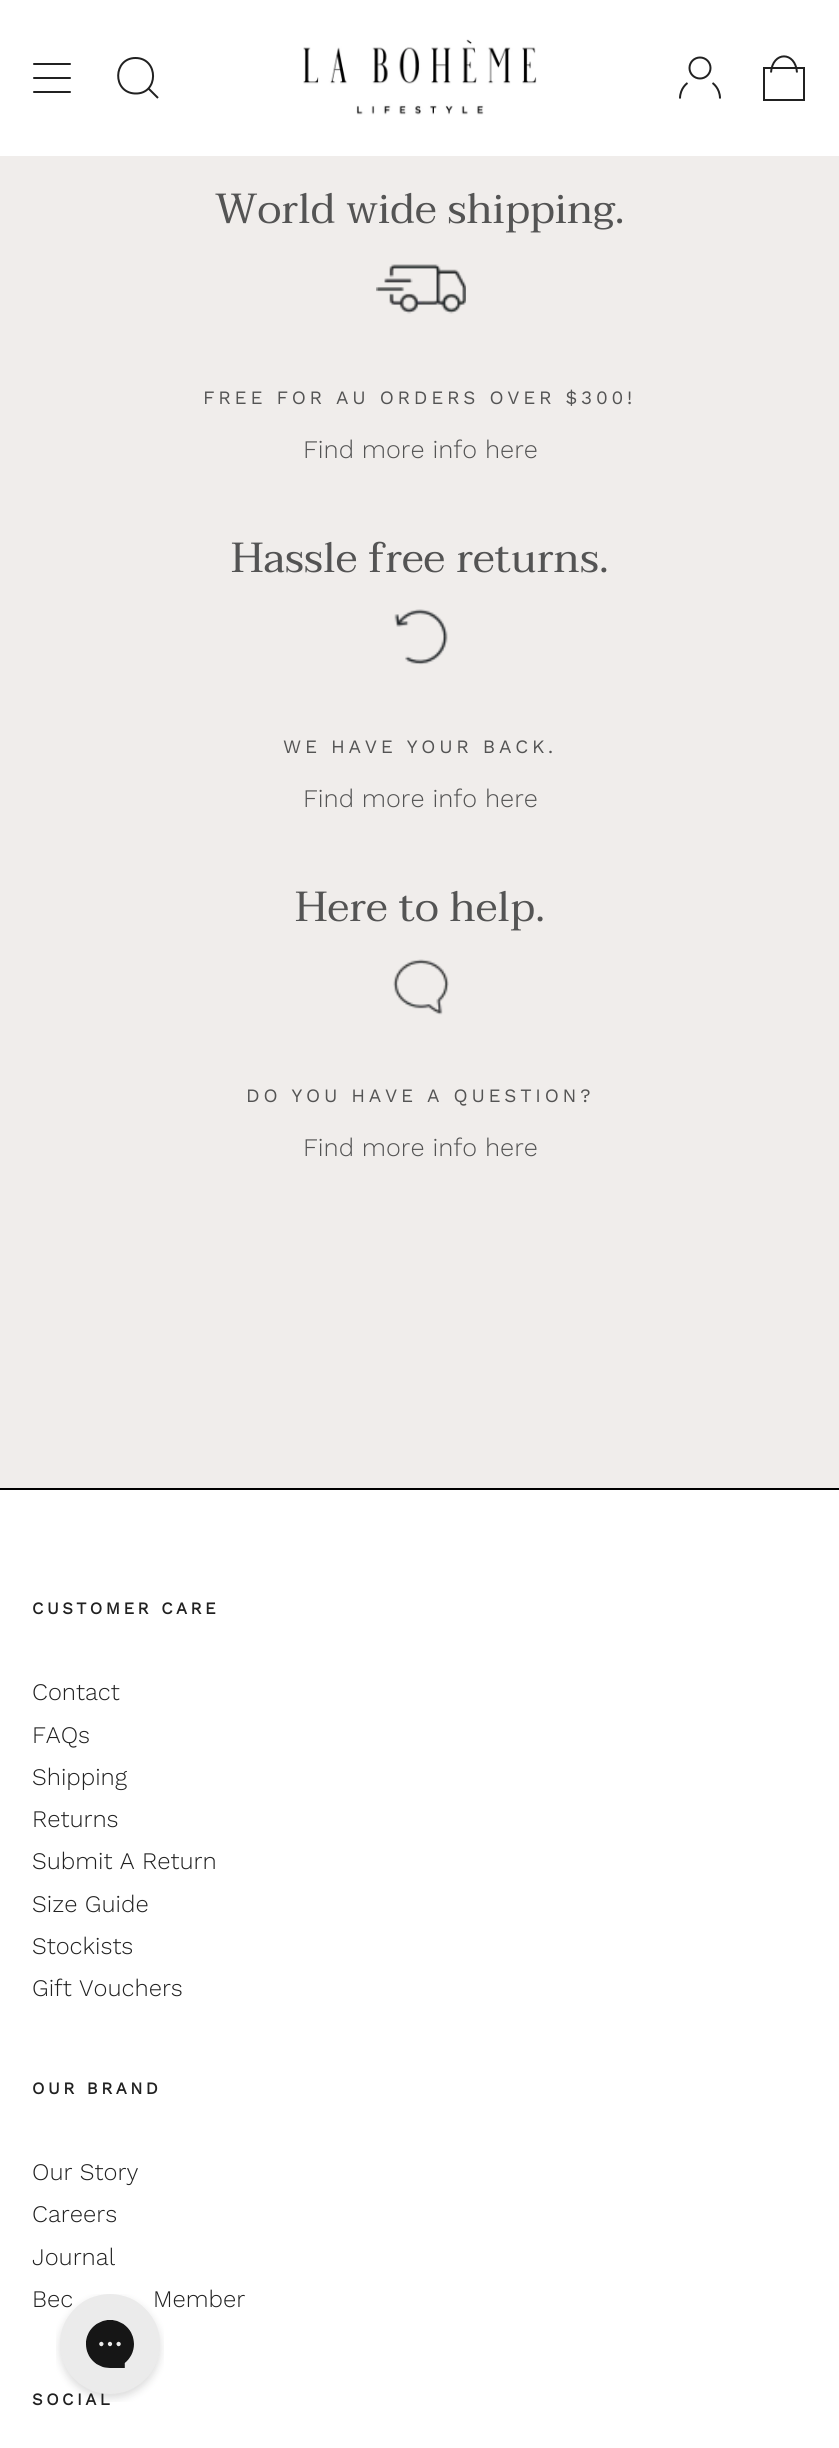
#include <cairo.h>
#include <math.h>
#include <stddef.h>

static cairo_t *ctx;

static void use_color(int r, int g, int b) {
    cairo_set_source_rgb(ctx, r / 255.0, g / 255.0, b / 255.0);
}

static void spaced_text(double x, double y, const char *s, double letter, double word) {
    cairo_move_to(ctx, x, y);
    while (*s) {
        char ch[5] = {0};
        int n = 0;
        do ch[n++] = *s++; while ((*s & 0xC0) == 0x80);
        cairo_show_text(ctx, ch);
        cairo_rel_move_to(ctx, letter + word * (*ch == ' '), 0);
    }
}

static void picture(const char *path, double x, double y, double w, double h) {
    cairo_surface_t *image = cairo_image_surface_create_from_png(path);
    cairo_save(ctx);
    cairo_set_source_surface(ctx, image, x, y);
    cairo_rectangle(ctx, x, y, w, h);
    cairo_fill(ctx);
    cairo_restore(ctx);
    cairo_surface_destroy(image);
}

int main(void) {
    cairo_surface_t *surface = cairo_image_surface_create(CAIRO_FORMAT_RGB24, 839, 2448);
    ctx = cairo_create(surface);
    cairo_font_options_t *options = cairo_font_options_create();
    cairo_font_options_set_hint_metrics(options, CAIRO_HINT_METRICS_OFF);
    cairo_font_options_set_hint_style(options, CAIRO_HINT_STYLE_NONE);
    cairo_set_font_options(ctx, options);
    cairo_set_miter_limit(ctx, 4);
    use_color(255, 255, 255);
    cairo_paint(ctx);
    cairo_new_path(ctx);
    cairo_move_to(ctx, 34, 64);
    cairo_line_to(ctx, 70, 64);
    cairo_move_to(ctx, 34, 78);
    cairo_line_to(ctx, 70, 78);
    cairo_move_to(ctx, 34, 92);
    cairo_line_to(ctx, 70, 92);
    use_color(33, 33, 33);
    cairo_set_line_cap(ctx, CAIRO_LINE_CAP_ROUND);
    cairo_set_line_join(ctx, CAIRO_LINE_JOIN_ROUND);
    cairo_stroke(ctx);
    cairo_new_path(ctx);
    cairo_move_to(ctx, 135.5, 58);
    cairo_curve_to(ctx, 159, 58, 159, 94.5, 135, 93.5);
    cairo_curve_to(ctx, 112, 92.5, 113, 58, 135.5, 58);
    cairo_close_path(ctx);
    cairo_move_to(ctx, 148, 88);
    cairo_line_to(ctx, 158, 98);
    cairo_set_line_cap(ctx, CAIRO_LINE_CAP_BUTT);
    cairo_set_line_join(ctx, CAIRO_LINE_JOIN_MITER);
    cairo_stroke(ctx);
    picture("img1.png", 303, 39, 234, 76);
    cairo_arc(ctx, 700, 68, 10.5, 0, 2 * M_PI);
    cairo_stroke(ctx);
    cairo_new_path(ctx);
    cairo_move_to(ctx, 687.5, 83);
    cairo_curve_to(ctx, 687.5, 83, 680, 88, 680, 98.5);
    cairo_move_to(ctx, 712.5, 83);
    cairo_curve_to(ctx, 712.5, 83, 720, 88, 720, 98.5);
    cairo_stroke(ctx);
    cairo_rectangle(ctx, 764, 68, 40, 32);
    cairo_stroke(ctx);
    cairo_new_path(ctx);
    cairo_move_to(ctx, 771, 72.5);
    cairo_curve_to(ctx, 772.5, 51, 795.5, 51, 797, 72.5);
    cairo_stroke(ctx);
    use_color(240, 237, 235);
    cairo_rectangle(ctx, 0, 156, 839, 1332);
    cairo_fill(ctx);
    cairo_select_font_face(ctx, "Taviraj", CAIRO_FONT_SLANT_NORMAL, CAIRO_FONT_WEIGHT_NORMAL);
    cairo_set_font_size(ctx, 42);
    use_color(84, 84, 84);
    cairo_move_to(ctx, 215, 223);
    cairo_show_text(ctx, "World wide shipping.");
    picture("img2.png", 376, 264, 90, 50);
    cairo_select_font_face(ctx, "Work Sans", CAIRO_FONT_SLANT_NORMAL, CAIRO_FONT_WEIGHT_NORMAL);
    cairo_set_font_size(ctx, 18.9);
    spaced_text(203, 404, "FREE FOR AU ORDERS OVER $300!", 3.75, 0);
    cairo_select_font_face(ctx, "Work Sans Light", CAIRO_FONT_SLANT_NORMAL, CAIRO_FONT_WEIGHT_NORMAL);
    cairo_set_font_size(ctx, 25.25);
    cairo_move_to(ctx, 303, 458);
    cairo_show_text(ctx, "Find more info here");
    cairo_select_font_face(ctx, "Taviraj", CAIRO_FONT_SLANT_NORMAL, CAIRO_FONT_WEIGHT_NORMAL);
    cairo_set_font_size(ctx, 42);
    cairo_move_to(ctx, 231, 572);
    cairo_show_text(ctx, "Hassle free returns.");
    picture("img3.png", 394, 609, 54, 56);
    cairo_select_font_face(ctx, "Work Sans", CAIRO_FONT_SLANT_NORMAL, CAIRO_FONT_WEIGHT_NORMAL);
    cairo_set_font_size(ctx, 18.9);
    spaced_text(283, 753, "WE HAVE YOUR BACK.", 3.75, 0);
    cairo_select_font_face(ctx, "Work Sans Light", CAIRO_FONT_SLANT_NORMAL, CAIRO_FONT_WEIGHT_NORMAL);
    cairo_set_font_size(ctx, 25.25);
    cairo_move_to(ctx, 303, 807);
    cairo_show_text(ctx, "Find more info here");
    cairo_select_font_face(ctx, "Taviraj", CAIRO_FONT_SLANT_NORMAL, CAIRO_FONT_WEIGHT_NORMAL);
    cairo_set_font_size(ctx, 42);
    cairo_move_to(ctx, 295, 921);
    cairo_show_text(ctx, "Here to help.");
    picture("img4.png", 393, 959, 56, 56);
    cairo_select_font_face(ctx, "Work Sans", CAIRO_FONT_SLANT_NORMAL, CAIRO_FONT_WEIGHT_NORMAL);
    cairo_set_font_size(ctx, 18.9);
    spaced_text(246, 1102, "DO YOU HAVE A QUESTION?", 3.75, 0);
    cairo_select_font_face(ctx, "Work Sans Light", CAIRO_FONT_SLANT_NORMAL, CAIRO_FONT_WEIGHT_NORMAL);
    cairo_set_font_size(ctx, 25.25);
    cairo_move_to(ctx, 303, 1156);
    cairo_show_text(ctx, "Find more info here");
    use_color(0, 0, 0);
    cairo_rectangle(ctx, 0, 1488, 839, 2);
    cairo_fill(ctx);
    cairo_select_font_face(ctx, "Work Sans", CAIRO_FONT_SLANT_NORMAL, CAIRO_FONT_WEIGHT_BOLD);
    cairo_set_font_size(ctx, 16.75);
    use_color(33, 33, 33);
    spaced_text(32, 1614, "CUSTOMER CARE", 3.4, 0);
    cairo_select_font_face(ctx, "Work Sans Light", CAIRO_FONT_SLANT_NORMAL, CAIRO_FONT_WEIGHT_NORMAL);
    cairo_set_font_size(ctx, 23.75);
    cairo_move_to(ctx, 32, 1700);
    cairo_show_text(ctx, "Contact");
    cairo_move_to(ctx, 32, 1743);
    cairo_show_text(ctx, "FAQs");
    cairo_move_to(ctx, 32, 1785);
    cairo_show_text(ctx, "Shipping");
    cairo_move_to(ctx, 32, 1827);
    cairo_show_text(ctx, "Returns");
    cairo_move_to(ctx, 32, 1869);
    cairo_show_text(ctx, "Submit A Return");
    cairo_move_to(ctx, 32, 1912);
    cairo_show_text(ctx, "Size Guide");
    cairo_move_to(ctx, 32, 1954);
    cairo_show_text(ctx, "Stockists");
    cairo_move_to(ctx, 32, 1996);
    cairo_show_text(ctx, "Gift Vouchers");
    cairo_select_font_face(ctx, "Work Sans", CAIRO_FONT_SLANT_NORMAL, CAIRO_FONT_WEIGHT_BOLD);
    cairo_set_font_size(ctx, 16.75);
    spaced_text(32, 2094, "OUR BRAND", 3.4, 0);
    cairo_select_font_face(ctx, "Work Sans Light", CAIRO_FONT_SLANT_NORMAL, CAIRO_FONT_WEIGHT_NORMAL);
    cairo_set_font_size(ctx, 23.75);
    cairo_move_to(ctx, 32, 2180);
    cairo_show_text(ctx, "Our Story");
    cairo_move_to(ctx, 32, 2222);
    cairo_show_text(ctx, "Careers");
    cairo_move_to(ctx, 32, 2265);
    cairo_show_text(ctx, "Journal");
    cairo_move_to(ctx, 32, 2307);
    cairo_show_text(ctx, "Bec");
    cairo_move_to(ctx, 153, 2307);
    cairo_show_text(ctx, "Member");
    cairo_select_font_face(ctx, "Work Sans", CAIRO_FONT_SLANT_NORMAL, CAIRO_FONT_WEIGHT_BOLD);
    cairo_set_font_size(ctx, 16.75);
    spaced_text(32, 2405, "SOCIAL", 3.4, 0);
    picture("img5.png", 56, 2294, 108, 108);
    cairo_surface_write_to_png(surface, "result.png");
    cairo_font_options_destroy(options);
    cairo_destroy(ctx);
    cairo_surface_destroy(surface);
    return 0;
}
